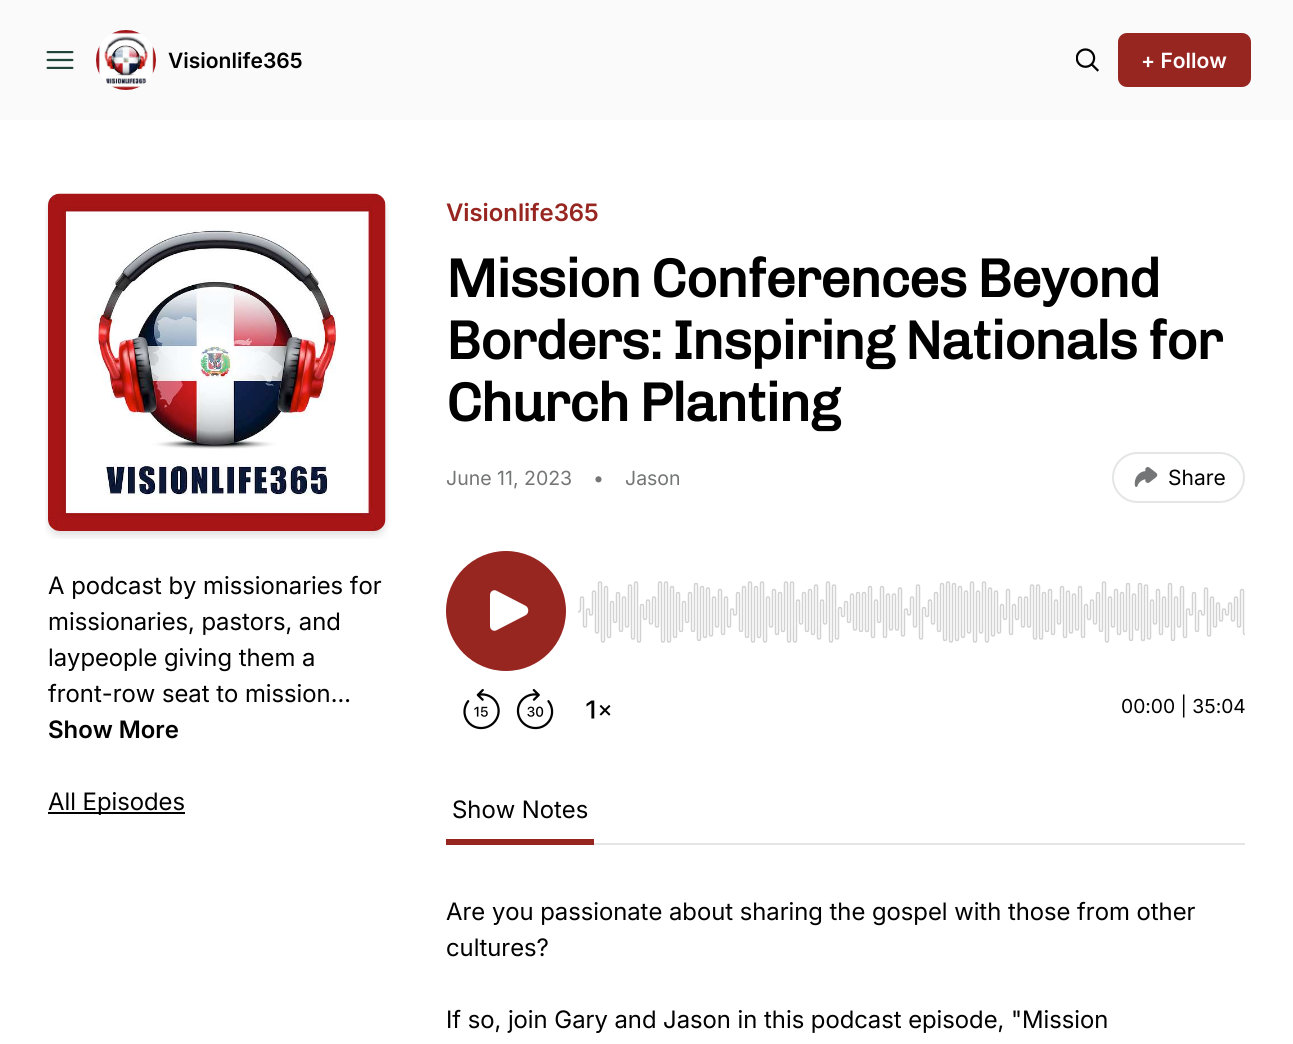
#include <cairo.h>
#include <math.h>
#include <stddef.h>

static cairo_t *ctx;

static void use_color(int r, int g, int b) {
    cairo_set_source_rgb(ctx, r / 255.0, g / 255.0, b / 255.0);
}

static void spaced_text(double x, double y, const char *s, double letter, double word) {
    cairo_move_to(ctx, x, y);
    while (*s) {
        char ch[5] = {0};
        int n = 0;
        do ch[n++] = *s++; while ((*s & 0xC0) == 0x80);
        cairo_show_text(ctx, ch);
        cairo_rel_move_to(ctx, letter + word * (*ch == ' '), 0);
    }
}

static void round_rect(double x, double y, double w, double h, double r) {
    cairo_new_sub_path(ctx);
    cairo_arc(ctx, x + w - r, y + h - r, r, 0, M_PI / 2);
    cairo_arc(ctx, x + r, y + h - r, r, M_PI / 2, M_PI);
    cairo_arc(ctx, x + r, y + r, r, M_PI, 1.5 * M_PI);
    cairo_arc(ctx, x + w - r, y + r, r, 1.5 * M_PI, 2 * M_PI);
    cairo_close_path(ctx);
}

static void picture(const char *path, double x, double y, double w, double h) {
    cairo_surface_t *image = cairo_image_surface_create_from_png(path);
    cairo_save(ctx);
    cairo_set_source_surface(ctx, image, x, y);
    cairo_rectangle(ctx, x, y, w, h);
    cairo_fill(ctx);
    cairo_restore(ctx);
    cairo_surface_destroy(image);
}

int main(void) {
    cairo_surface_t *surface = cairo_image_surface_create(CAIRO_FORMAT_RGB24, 1293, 1044);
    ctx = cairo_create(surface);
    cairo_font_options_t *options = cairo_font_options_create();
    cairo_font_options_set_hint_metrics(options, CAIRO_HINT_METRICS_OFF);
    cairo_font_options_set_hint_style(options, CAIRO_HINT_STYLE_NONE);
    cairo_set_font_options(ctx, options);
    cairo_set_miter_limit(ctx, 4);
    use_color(255, 255, 255);
    cairo_paint(ctx);
    use_color(250, 250, 250);
    cairo_rectangle(ctx, 0, 0, 1293, 120);
    cairo_fill(ctx);
    picture("img1.png", 46, 51, 28, 18);
    picture("img2.png", 96, 30, 60, 60);
    cairo_select_font_face(ctx, "Inter SemiBold", CAIRO_FONT_SLANT_NORMAL, CAIRO_FONT_WEIGHT_NORMAL);
    cairo_set_font_size(ctx, 21);
    use_color(0, 0, 0);
    cairo_move_to(ctx, 168, 68);
    cairo_show_text(ctx, "Visionlife365");
    picture("img3.png", 1076, 48, 23, 24);
    use_color(151, 38, 33);
    round_rect(1118, 33, 133, 54, 9);
    cairo_fill(ctx);
    use_color(255, 255, 255);
    cairo_move_to(ctx, 1141, 68);
    cairo_show_text(ctx, "+ Follow");
    picture("img4.png", 45, 193, 344, 346);
    cairo_select_font_face(ctx, "Inter", CAIRO_FONT_SLANT_NORMAL, CAIRO_FONT_WEIGHT_NORMAL);
    cairo_set_font_size(ctx, 24);
    use_color(0, 0, 0);
    cairo_move_to(ctx, 48, 594);
    cairo_show_text(ctx, "A podcast by missionaries for");
    cairo_move_to(ctx, 48, 630);
    cairo_show_text(ctx, "missionaries, pastors, and");
    cairo_move_to(ctx, 48, 666);
    cairo_show_text(ctx, "laypeople giving them a");
    cairo_move_to(ctx, 48, 702);
    cairo_show_text(ctx, "front-row seat to mission…");
    cairo_select_font_face(ctx, "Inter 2 SemiBold", CAIRO_FONT_SLANT_NORMAL, CAIRO_FONT_WEIGHT_NORMAL);
    cairo_move_to(ctx, 48, 738);
    cairo_show_text(ctx, "Show More");
    cairo_rectangle(ctx, 48, 812, 137, 2);
    cairo_fill(ctx);
    cairo_select_font_face(ctx, "Inter", CAIRO_FONT_SLANT_NORMAL, CAIRO_FONT_WEIGHT_NORMAL);
    cairo_move_to(ctx, 48, 810);
    cairo_show_text(ctx, "All Episodes");
    cairo_select_font_face(ctx, "Inter 2 SemiBold", CAIRO_FONT_SLANT_NORMAL, CAIRO_FONT_WEIGHT_NORMAL);
    use_color(151, 38, 33);
    cairo_move_to(ctx, 446, 221);
    cairo_show_text(ctx, "Visionlife365");
    cairo_select_font_face(ctx, "Chivo", CAIRO_FONT_SLANT_NORMAL, CAIRO_FONT_WEIGHT_BOLD);
    cairo_set_font_size(ctx, 54);
    use_color(0, 0, 0);
    spaced_text(446, 297, "Mission Conferences Beyond", -1.35, 0);
    spaced_text(446, 359, "Borders: Inspiring Nationals for", -1.35, 0);
    spaced_text(446, 421, "Church Planting", -1.35, 0);
    cairo_select_font_face(ctx, "Inter 2", CAIRO_FONT_SLANT_NORMAL, CAIRO_FONT_WEIGHT_NORMAL);
    cairo_set_font_size(ctx, 19.5);
    use_color(116, 117, 118);
    cairo_move_to(ctx, 446, 485);
    cairo_show_text(ctx, "June 11, 2023");
    cairo_move_to(ctx, 593, 485);
    cairo_show_text(ctx, "•");
    cairo_move_to(ctx, 625, 485);
    cairo_show_text(ctx, "Jason");
    round_rect(1113, 453, 131, 49, 24.5);
    use_color(228, 229, 230);
    cairo_stroke(ctx);
    picture("img5.png", 1134, 467, 24, 20);
    cairo_set_font_size(ctx, 21);
    use_color(0, 0, 0);
    cairo_move_to(ctx, 1168, 485);
    cairo_show_text(ctx, "Share");
    picture("img6.png", 463, 689, 37, 41);
    picture("img7.png", 516, 689, 38, 41);
    picture("img8.png", 586, 700, 25, 19);
    use_color(151, 38, 33);
    cairo_arc(ctx, 506, 611, 60, 0, 2 * M_PI);
    cairo_fill(ctx);
    use_color(255, 255, 255);
    cairo_set_fill_rule(ctx, CAIRO_FILL_RULE_EVEN_ODD);
    cairo_new_path(ctx);
    cairo_move_to(ctx, 490, 595);
    cairo_curve_to(ctx, 490, 591, 494, 589, 497, 591);
    cairo_line_to(ctx, 526, 606);
    cairo_curve_to(ctx, 529, 608, 529, 613, 526, 615);
    cairo_line_to(ctx, 497, 630);
    cairo_curve_to(ctx, 494, 632, 490, 630, 490, 626);
    cairo_close_path(ctx);
    cairo_fill(ctx);
    picture("img9.png", 578, 581, 667, 62);
    cairo_set_font_size(ctx, 19.25);
    use_color(0, 0, 0);
    cairo_move_to(ctx, 1121, 713);
    cairo_show_text(ctx, "00:00 | 35:04");
    use_color(228, 229, 230);
    cairo_rectangle(ctx, 594, 843, 651, 2);
    cairo_fill(ctx);
    use_color(151, 38, 33);
    cairo_rectangle(ctx, 446, 839, 148, 6);
    cairo_fill(ctx);
    cairo_select_font_face(ctx, "Inter", CAIRO_FONT_SLANT_NORMAL, CAIRO_FONT_WEIGHT_NORMAL);
    cairo_set_font_size(ctx, 24);
    use_color(0, 0, 0);
    cairo_move_to(ctx, 452, 818);
    cairo_show_text(ctx, "Show Notes");
    cairo_move_to(ctx, 446, 920);
    cairo_show_text(ctx, "Are you passionate about sharing the gospel with those from other");
    cairo_move_to(ctx, 446, 956);
    cairo_show_text(ctx, "cultures?");
    cairo_move_to(ctx, 446, 1028);
    cairo_show_text(ctx, "If so, join Gary and Jason in this podcast episode, \"Mission");
    cairo_surface_write_to_png(surface, "result.png");
    cairo_font_options_destroy(options);
    cairo_destroy(ctx);
    cairo_surface_destroy(surface);
    return 0;
}
